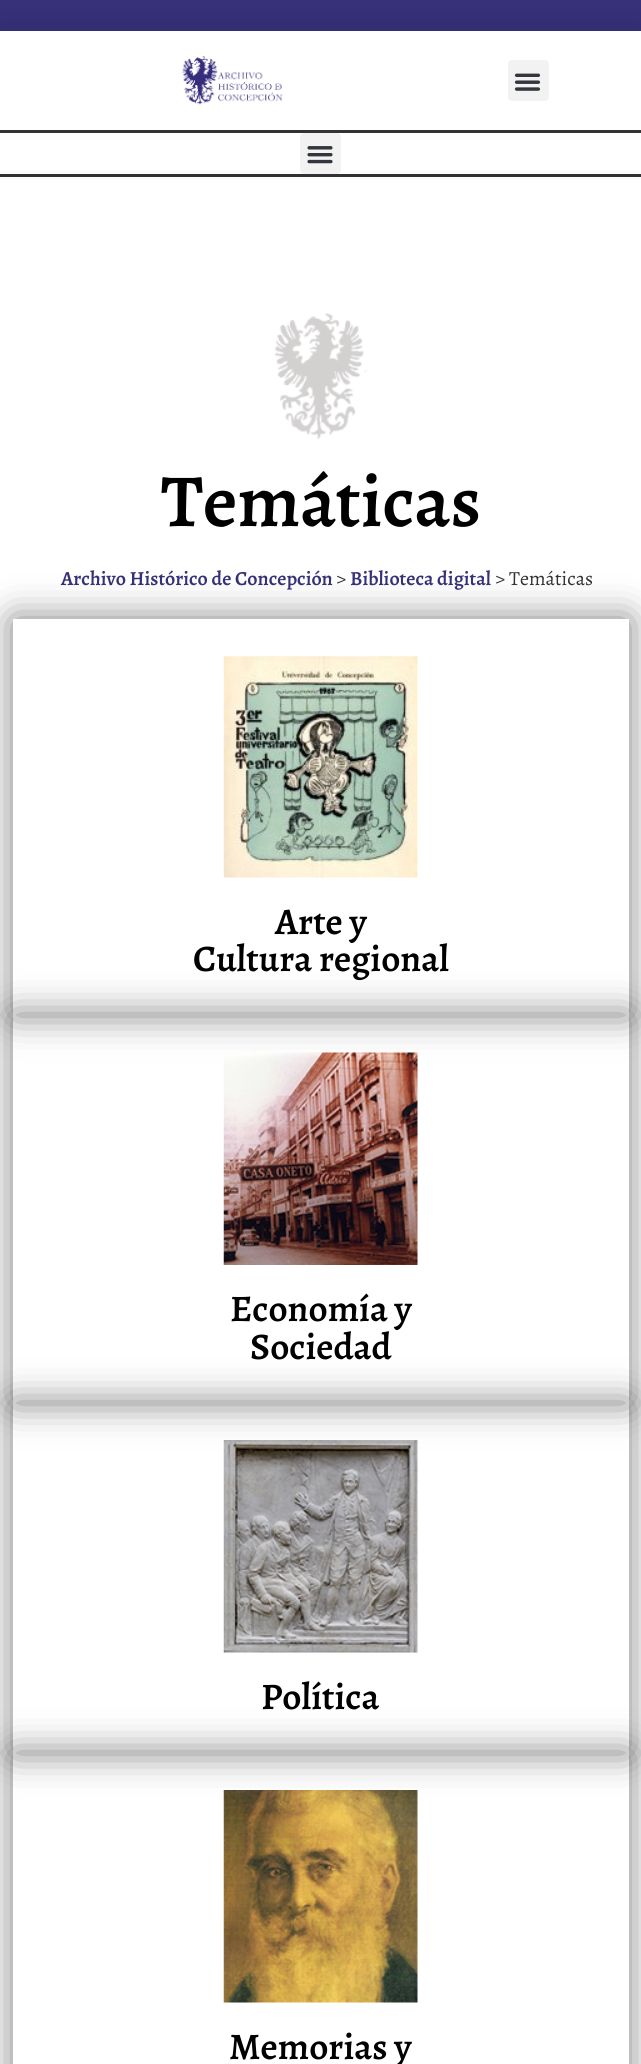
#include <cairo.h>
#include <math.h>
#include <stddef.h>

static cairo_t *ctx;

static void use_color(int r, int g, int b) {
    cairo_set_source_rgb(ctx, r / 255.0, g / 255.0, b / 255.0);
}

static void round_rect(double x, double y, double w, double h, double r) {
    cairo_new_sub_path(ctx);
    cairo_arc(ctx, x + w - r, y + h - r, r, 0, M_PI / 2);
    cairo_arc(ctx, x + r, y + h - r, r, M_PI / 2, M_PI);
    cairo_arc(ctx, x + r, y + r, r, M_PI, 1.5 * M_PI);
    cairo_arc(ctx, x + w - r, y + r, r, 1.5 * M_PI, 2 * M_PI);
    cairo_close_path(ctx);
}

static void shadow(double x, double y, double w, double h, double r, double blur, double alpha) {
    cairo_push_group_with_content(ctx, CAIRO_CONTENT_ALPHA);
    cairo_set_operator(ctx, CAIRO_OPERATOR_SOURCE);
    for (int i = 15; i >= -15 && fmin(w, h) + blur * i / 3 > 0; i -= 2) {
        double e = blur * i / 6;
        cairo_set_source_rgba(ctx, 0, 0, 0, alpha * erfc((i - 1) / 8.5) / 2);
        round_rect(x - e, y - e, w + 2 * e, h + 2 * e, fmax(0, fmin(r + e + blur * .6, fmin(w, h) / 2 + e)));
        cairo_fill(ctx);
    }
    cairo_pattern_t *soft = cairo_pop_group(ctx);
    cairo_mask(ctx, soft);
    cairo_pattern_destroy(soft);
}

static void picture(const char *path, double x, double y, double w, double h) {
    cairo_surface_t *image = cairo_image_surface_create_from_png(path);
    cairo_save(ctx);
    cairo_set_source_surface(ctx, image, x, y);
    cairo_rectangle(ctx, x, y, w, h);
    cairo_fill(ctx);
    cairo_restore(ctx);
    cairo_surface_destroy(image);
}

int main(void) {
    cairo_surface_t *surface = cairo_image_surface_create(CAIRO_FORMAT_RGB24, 641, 2064);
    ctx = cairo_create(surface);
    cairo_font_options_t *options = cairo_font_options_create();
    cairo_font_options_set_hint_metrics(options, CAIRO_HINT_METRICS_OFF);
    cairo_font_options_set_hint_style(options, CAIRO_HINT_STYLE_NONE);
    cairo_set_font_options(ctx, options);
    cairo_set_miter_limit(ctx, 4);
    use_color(255, 255, 255);
    cairo_paint(ctx);
    use_color(54, 49, 120);
    cairo_rectangle(ctx, 0, 0, 641, 31);
    cairo_fill(ctx);
    cairo_save(ctx);
    cairo_rectangle(ctx, 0, 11, 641, 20);
    cairo_clip(ctx);
    use_color(0, 0, 0);
    shadow(0, 31, 641, 99, 0, 24, 0.1);
    cairo_restore(ctx);
    picture("img1.png", 182, 56, 101, 49);
    use_color(242, 242, 242);
    round_rect(508, 60, 41, 41, 4);
    cairo_fill(ctx);
    picture("img2.png", 514, 73, 27, 18);
    use_color(255, 255, 255);
    cairo_rectangle(ctx, 0, 133, 641, 28);
    cairo_fill(ctx);
    use_color(51, 51, 51);
    cairo_rectangle(ctx, 0, 130, 641, 3);
    cairo_fill(ctx);
    cairo_rectangle(ctx, 0, 174, 641, 3);
    cairo_fill(ctx);
    use_color(242, 242, 242);
    round_rect(300, 133, 41, 41, 4);
    cairo_fill(ctx);
    picture("img3.png", 307, 146, 26, 18);
    picture("img4.png", 275, 313, 92, 126);
    cairo_select_font_face(ctx, "Alegreya SemiBold", CAIRO_FONT_SLANT_NORMAL, CAIRO_FONT_WEIGHT_NORMAL);
    cairo_set_font_size(ctx, 75);
    use_color(0, 0, 0);
    cairo_move_to(ctx, 161, 526);
    cairo_show_text(ctx, "Temáticas");
    cairo_set_font_size(ctx, 20);
    use_color(54, 49, 120);
    cairo_move_to(ctx, 61, 585);
    cairo_show_text(ctx, "Archivo Histórico de Concepción");
    cairo_select_font_face(ctx, "Alegreya", CAIRO_FONT_SLANT_NORMAL, CAIRO_FONT_WEIGHT_NORMAL);
    use_color(51, 51, 51);
    cairo_move_to(ctx, 336, 585);
    cairo_show_text(ctx, ">");
    cairo_select_font_face(ctx, "Alegreya SemiBold", CAIRO_FONT_SLANT_NORMAL, CAIRO_FONT_WEIGHT_NORMAL);
    use_color(54, 49, 120);
    cairo_move_to(ctx, 350, 585);
    cairo_show_text(ctx, "Biblioteca digital");
    cairo_select_font_face(ctx, "Alegreya", CAIRO_FONT_SLANT_NORMAL, CAIRO_FONT_WEIGHT_NORMAL);
    use_color(51, 51, 51);
    cairo_move_to(ctx, 495, 585);
    cairo_show_text(ctx, "> Temáticas");
    cairo_save(ctx);
    cairo_set_fill_rule(ctx, CAIRO_FILL_RULE_EVEN_ODD);
    cairo_new_path(ctx);
    cairo_move_to(ctx, 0, 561);
    cairo_line_to(ctx, 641, 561);
    cairo_line_to(ctx, 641, 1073);
    cairo_line_to(ctx, 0, 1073);
    cairo_close_path(ctx);
    cairo_move_to(ctx, 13, 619);
    cairo_line_to(ctx, 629, 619);
    cairo_line_to(ctx, 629, 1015);
    cairo_line_to(ctx, 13, 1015);
    cairo_close_path(ctx);
    cairo_clip(ctx);
    use_color(0, 0, 0);
    shadow(13, 619, 616, 396, 0, 19, 0.5);
    cairo_restore(ctx);
    picture("img5.png", 223, 656, 195, 222);
    cairo_select_font_face(ctx, "Alegreya SemiBold", CAIRO_FONT_SLANT_NORMAL, CAIRO_FONT_WEIGHT_NORMAL);
    cairo_set_font_size(ctx, 37.5);
    use_color(0, 0, 0);
    cairo_move_to(ctx, 275, 934);
    cairo_show_text(ctx, "Arte y");
    cairo_move_to(ctx, 193, 971);
    cairo_show_text(ctx, "Cultura regional");
    cairo_save(ctx);
    cairo_set_fill_rule(ctx, CAIRO_FILL_RULE_EVEN_ODD);
    cairo_new_path(ctx);
    cairo_move_to(ctx, 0, 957);
    cairo_line_to(ctx, 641, 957);
    cairo_line_to(ctx, 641, 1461);
    cairo_line_to(ctx, 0, 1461);
    cairo_close_path(ctx);
    cairo_move_to(ctx, 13, 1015);
    cairo_line_to(ctx, 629, 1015);
    cairo_line_to(ctx, 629, 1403);
    cairo_line_to(ctx, 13, 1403);
    cairo_close_path(ctx);
    cairo_clip(ctx);
    use_color(0, 0, 0);
    shadow(13, 1015, 616, 388, 0, 19, 0.5);
    cairo_restore(ctx);
    picture("img6.png", 223, 1052, 195, 213);
    cairo_move_to(ctx, 230, 1321);
    cairo_show_text(ctx, "Economía y");
    cairo_move_to(ctx, 250, 1359);
    cairo_show_text(ctx, "Sociedad");
    cairo_save(ctx);
    cairo_set_fill_rule(ctx, CAIRO_FILL_RULE_EVEN_ODD);
    cairo_new_path(ctx);
    cairo_move_to(ctx, 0, 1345);
    cairo_line_to(ctx, 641, 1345);
    cairo_line_to(ctx, 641, 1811);
    cairo_line_to(ctx, 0, 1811);
    cairo_close_path(ctx);
    cairo_move_to(ctx, 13, 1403);
    cairo_line_to(ctx, 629, 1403);
    cairo_line_to(ctx, 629, 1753);
    cairo_line_to(ctx, 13, 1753);
    cairo_close_path(ctx);
    cairo_clip(ctx);
    use_color(0, 0, 0);
    shadow(13, 1403, 616, 350, 0, 19, 0.5);
    cairo_restore(ctx);
    picture("img7.png", 223, 1440, 195, 213);
    cairo_move_to(ctx, 261, 1709);
    cairo_show_text(ctx, "Política");
    cairo_save(ctx);
    cairo_set_fill_rule(ctx, CAIRO_FILL_RULE_EVEN_ODD);
    cairo_new_path(ctx);
    cairo_move_to(ctx, 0, 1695);
    cairo_line_to(ctx, 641, 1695);
    cairo_line_to(ctx, 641, 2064);
    cairo_line_to(ctx, 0, 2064);
    cairo_close_path(ctx);
    cairo_move_to(ctx, 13, 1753);
    cairo_line_to(ctx, 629, 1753);
    cairo_line_to(ctx, 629, 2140);
    cairo_line_to(ctx, 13, 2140);
    cairo_close_path(ctx);
    cairo_clip(ctx);
    use_color(0, 0, 0);
    shadow(13, 1753, 616, 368, 0, 19, 0.5);
    cairo_restore(ctx);
    picture("img8.png", 223, 1790, 195, 213);
    cairo_move_to(ctx, 229, 2059);
    cairo_show_text(ctx, "Memorias y");
    cairo_surface_write_to_png(surface, "result.png");
    cairo_font_options_destroy(options);
    cairo_destroy(ctx);
    cairo_surface_destroy(surface);
    return 0;
}
